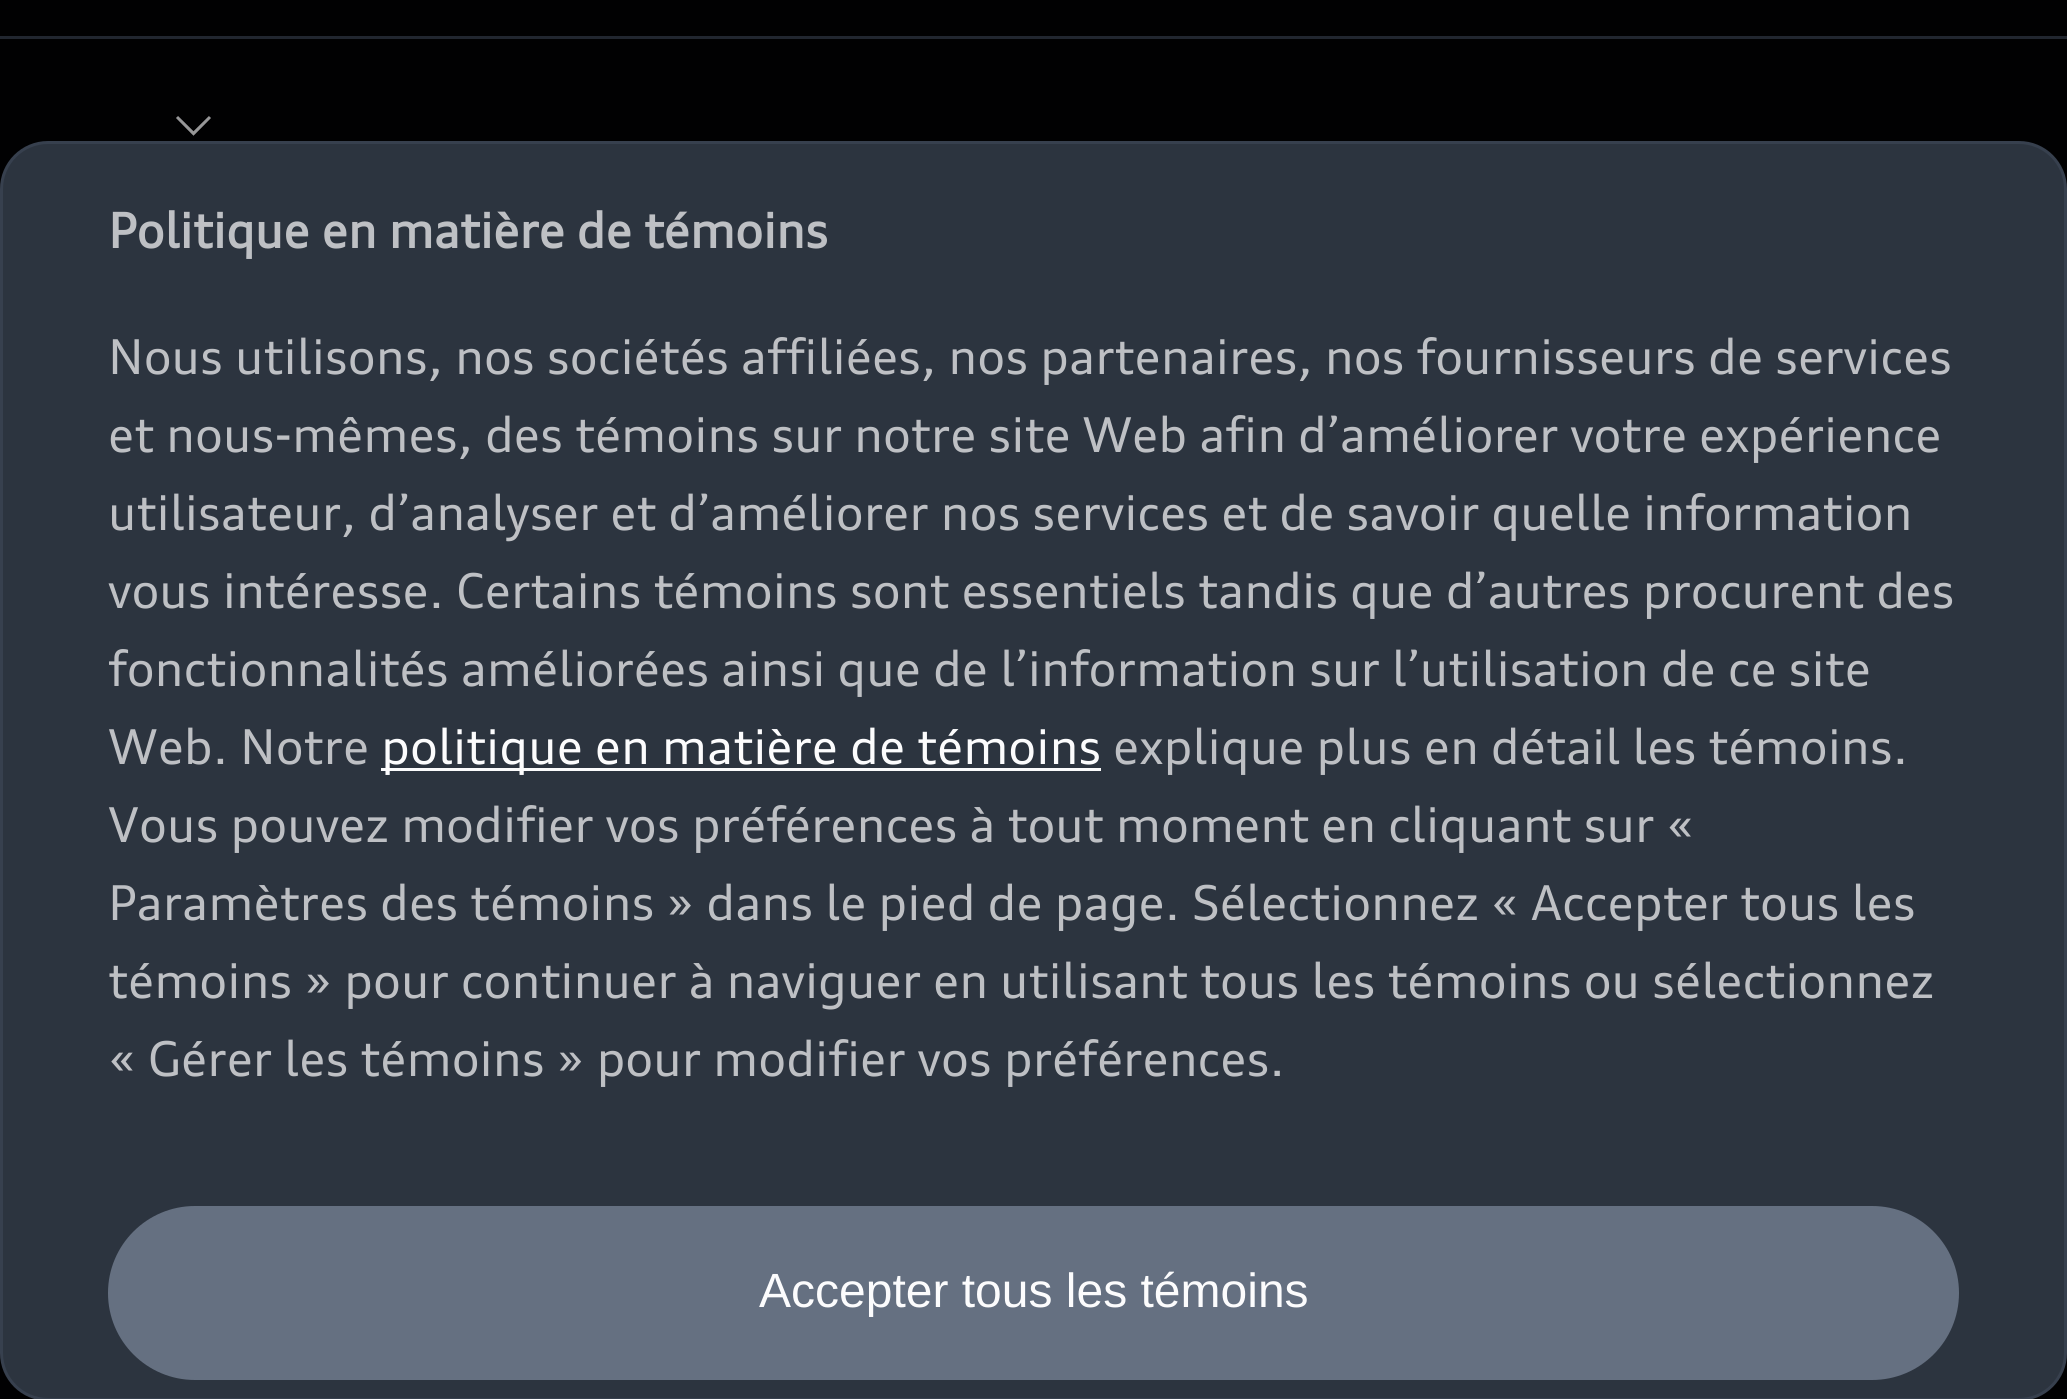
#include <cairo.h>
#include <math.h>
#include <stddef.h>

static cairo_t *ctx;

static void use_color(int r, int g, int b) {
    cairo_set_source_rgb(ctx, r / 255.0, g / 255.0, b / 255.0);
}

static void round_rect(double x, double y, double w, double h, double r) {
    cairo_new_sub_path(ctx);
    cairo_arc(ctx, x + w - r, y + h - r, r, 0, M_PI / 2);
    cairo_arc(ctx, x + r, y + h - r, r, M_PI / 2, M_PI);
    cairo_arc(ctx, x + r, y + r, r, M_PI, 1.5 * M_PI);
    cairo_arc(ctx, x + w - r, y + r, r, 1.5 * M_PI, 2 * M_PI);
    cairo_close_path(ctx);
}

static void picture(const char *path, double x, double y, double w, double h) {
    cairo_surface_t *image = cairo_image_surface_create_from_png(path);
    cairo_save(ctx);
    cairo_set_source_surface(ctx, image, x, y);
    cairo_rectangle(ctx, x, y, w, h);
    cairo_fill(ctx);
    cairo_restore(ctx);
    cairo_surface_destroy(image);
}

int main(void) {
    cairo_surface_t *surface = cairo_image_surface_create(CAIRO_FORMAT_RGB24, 2067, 1399);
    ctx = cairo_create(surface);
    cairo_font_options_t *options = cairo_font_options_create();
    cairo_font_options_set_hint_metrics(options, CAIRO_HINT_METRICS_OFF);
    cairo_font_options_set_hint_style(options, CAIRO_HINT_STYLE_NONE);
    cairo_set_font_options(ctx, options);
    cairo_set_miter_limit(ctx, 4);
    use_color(1, 1, 2);
    cairo_paint(ctx);
    use_color(33, 38, 47);
    cairo_rectangle(ctx, 0, 36, 2067, 3);
    cairo_fill(ctx);
    picture("img1.png", 176, 116, 35, 20);
    use_color(44, 52, 63);
    round_rect(1.5, 142.5, 2064, 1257, 46.5);
    cairo_fill_preserve(ctx);
    use_color(55, 64, 78);
    cairo_set_line_width(ctx, 3);
    cairo_stroke(ctx);
    cairo_select_font_face(ctx, "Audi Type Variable", CAIRO_FONT_SLANT_NORMAL, CAIRO_FONT_WEIGHT_BOLD);
    cairo_set_font_size(ctx, 48);
    use_color(190, 192, 196);
    cairo_move_to(ctx, 108, 248);
    cairo_show_text(ctx, "Politique en matière de témoins");
    cairo_select_font_face(ctx, "Audi Type Variable", CAIRO_FONT_SLANT_NORMAL, CAIRO_FONT_WEIGHT_NORMAL);
    cairo_move_to(ctx, 108, 374);
    cairo_show_text(ctx, "Nous utilisons, nos sociétés affiliées, nos partenaires, nos fournisseurs de services");
    cairo_move_to(ctx, 108, 452);
    cairo_show_text(ctx, "et nous-mêmes, des témoins sur notre site Web afin d’améliorer votre expérience");
    cairo_move_to(ctx, 108, 530);
    cairo_show_text(ctx, "utilisateur, d’analyser et d’améliorer nos services et de savoir quelle information");
    cairo_move_to(ctx, 108, 608);
    cairo_show_text(ctx, "vous intéresse. Certains témoins sont essentiels tandis que d’autres procurent des");
    cairo_move_to(ctx, 108, 686);
    cairo_show_text(ctx, "fonctionnalités améliorées ainsi que de l’information sur l’utilisation de ce site");
    cairo_move_to(ctx, 108, 764);
    cairo_show_text(ctx, "Web. Notre");
    use_color(252, 252, 253);
    cairo_rectangle(ctx, 381, 768, 720, 3);
    cairo_fill(ctx);
    cairo_move_to(ctx, 381, 764);
    cairo_show_text(ctx, "politique en matière de témoins");
    use_color(190, 192, 196);
    cairo_move_to(ctx, 1113, 764);
    cairo_show_text(ctx, "explique plus en détail les témoins.");
    cairo_move_to(ctx, 108, 842);
    cairo_show_text(ctx, "Vous pouvez modifier vos préférences à tout moment en cliquant sur «");
    cairo_move_to(ctx, 108, 920);
    cairo_show_text(ctx, "Paramètres des témoins » dans le pied de page. Sélectionnez « Accepter tous les");
    cairo_move_to(ctx, 108, 998);
    cairo_show_text(ctx, "témoins » pour continuer à naviguer en utilisant tous les témoins ou sélectionnez");
    cairo_move_to(ctx, 108, 1076);
    cairo_show_text(ctx, "« Gérer les témoins » pour modifier vos préférences.");
    use_color(101, 112, 129);
    round_rect(108, 1206, 1851, 174, 87);
    cairo_fill(ctx);
    cairo_select_font_face(ctx, "Liberation Sans", CAIRO_FONT_SLANT_NORMAL, CAIRO_FONT_WEIGHT_NORMAL);
    use_color(252, 252, 253);
    cairo_move_to(ctx, 759, 1307);
    cairo_show_text(ctx, "Accepter tous les témoins");
    cairo_surface_write_to_png(surface, "result.png");
    cairo_font_options_destroy(options);
    cairo_destroy(ctx);
    cairo_surface_destroy(surface);
    return 0;
}
